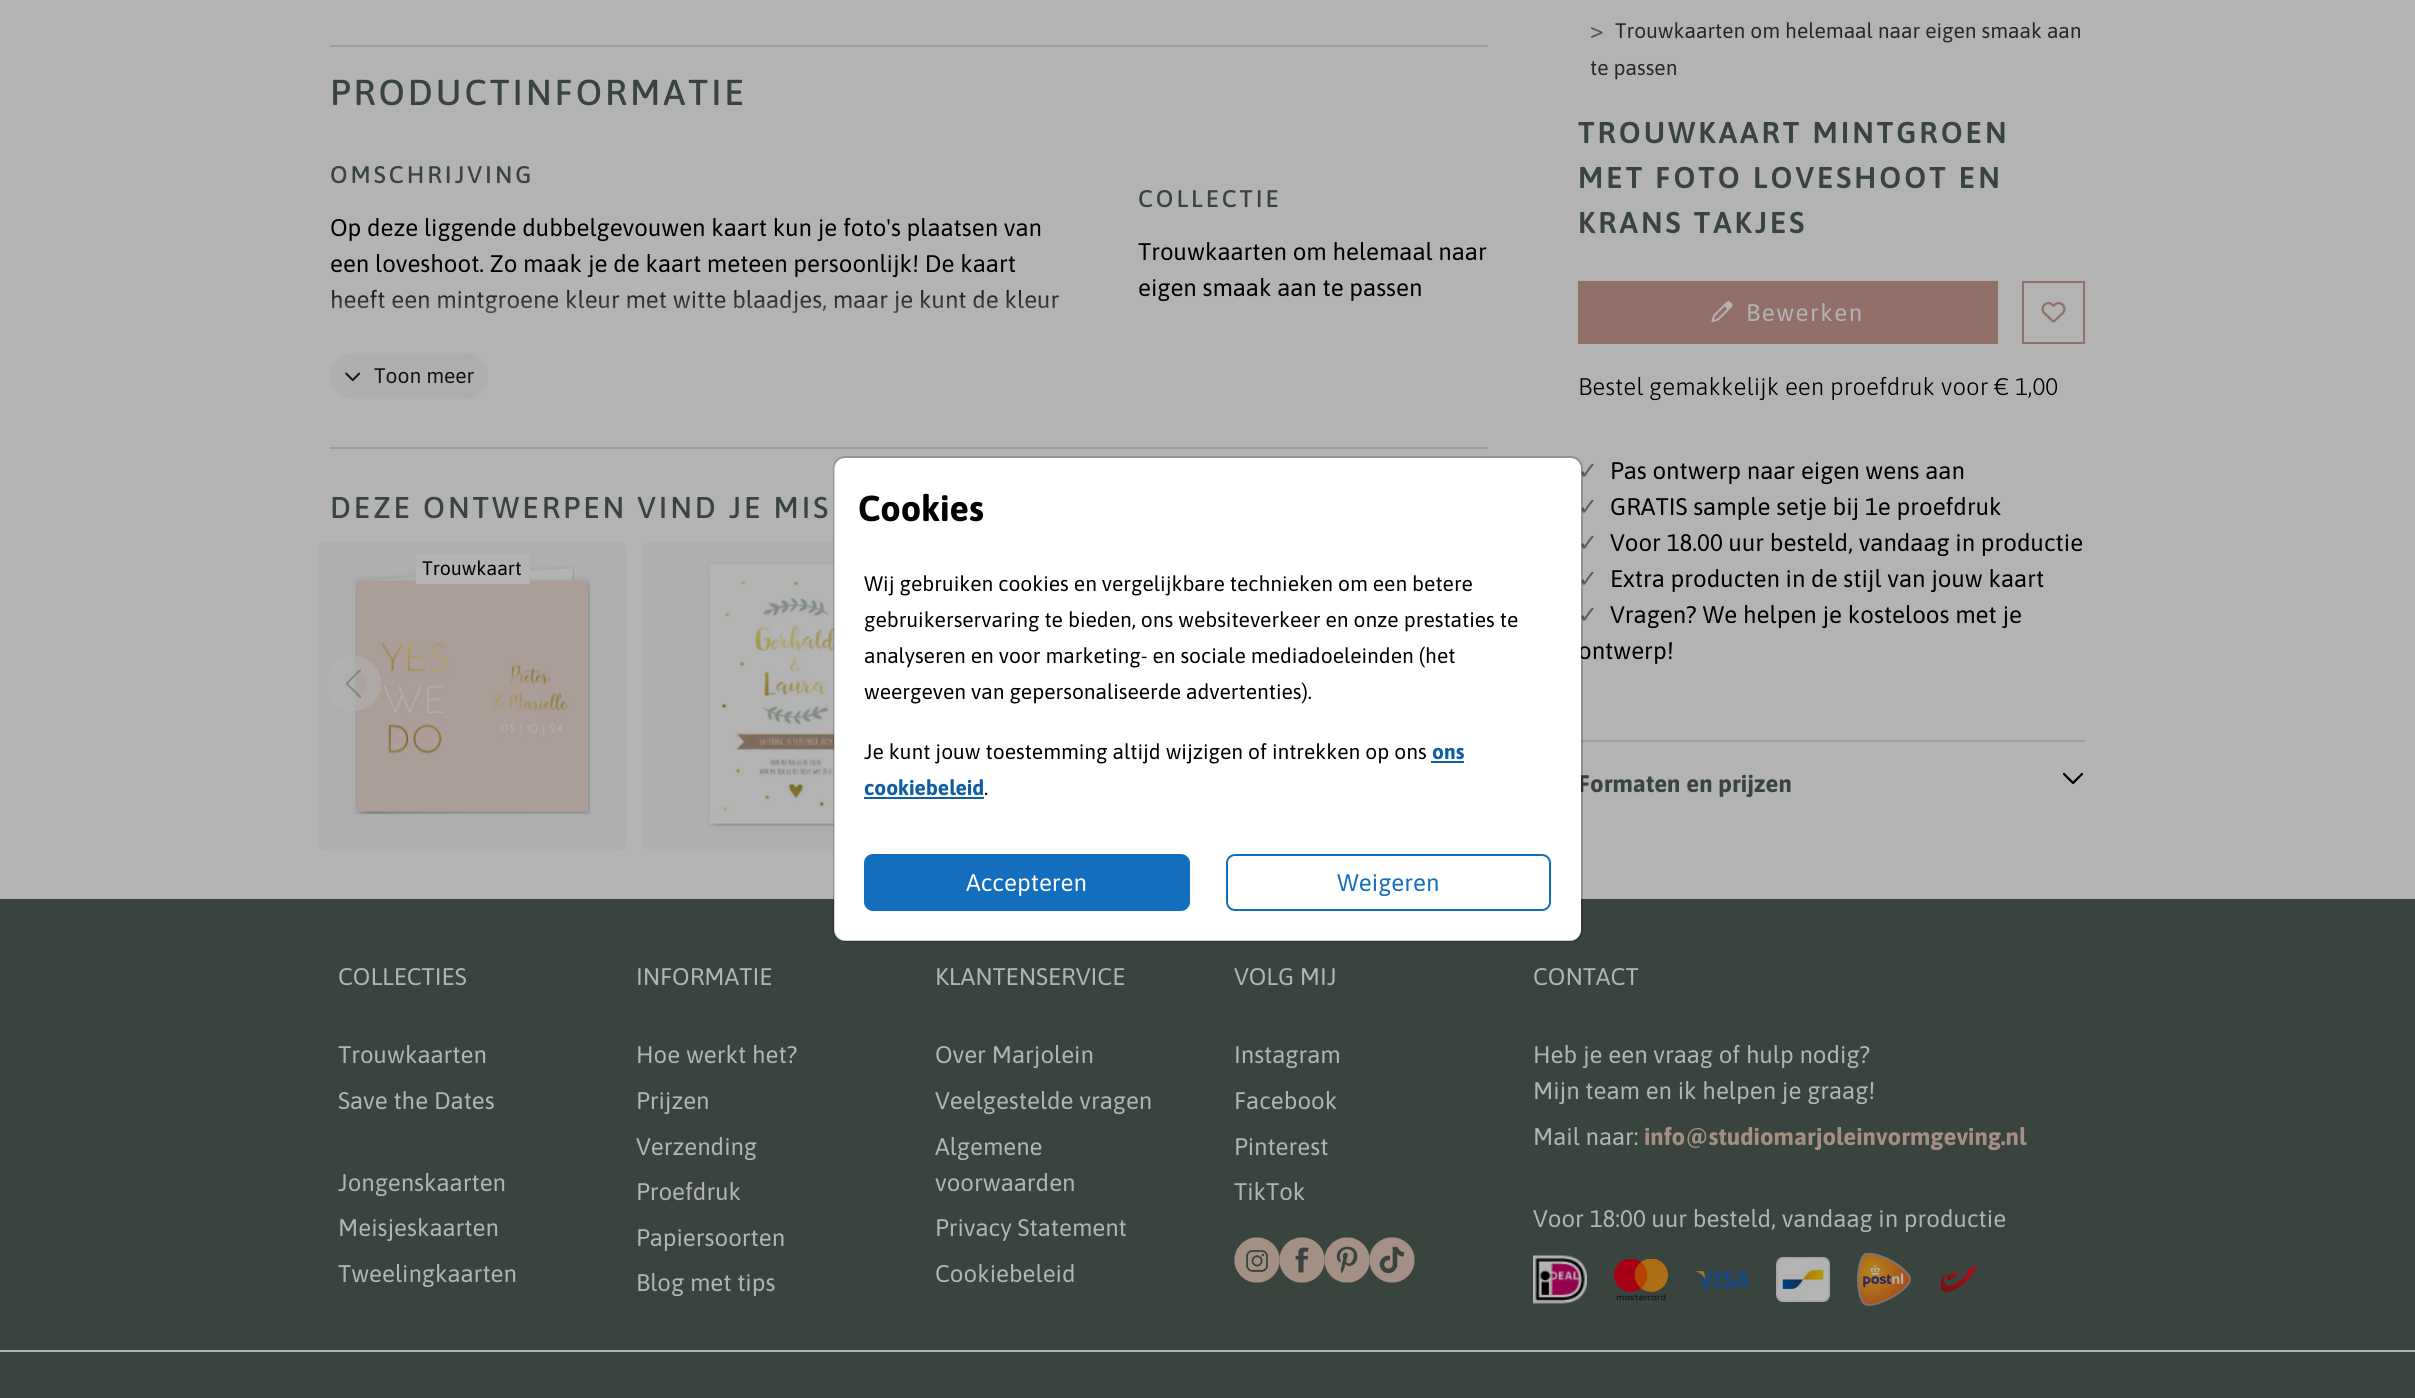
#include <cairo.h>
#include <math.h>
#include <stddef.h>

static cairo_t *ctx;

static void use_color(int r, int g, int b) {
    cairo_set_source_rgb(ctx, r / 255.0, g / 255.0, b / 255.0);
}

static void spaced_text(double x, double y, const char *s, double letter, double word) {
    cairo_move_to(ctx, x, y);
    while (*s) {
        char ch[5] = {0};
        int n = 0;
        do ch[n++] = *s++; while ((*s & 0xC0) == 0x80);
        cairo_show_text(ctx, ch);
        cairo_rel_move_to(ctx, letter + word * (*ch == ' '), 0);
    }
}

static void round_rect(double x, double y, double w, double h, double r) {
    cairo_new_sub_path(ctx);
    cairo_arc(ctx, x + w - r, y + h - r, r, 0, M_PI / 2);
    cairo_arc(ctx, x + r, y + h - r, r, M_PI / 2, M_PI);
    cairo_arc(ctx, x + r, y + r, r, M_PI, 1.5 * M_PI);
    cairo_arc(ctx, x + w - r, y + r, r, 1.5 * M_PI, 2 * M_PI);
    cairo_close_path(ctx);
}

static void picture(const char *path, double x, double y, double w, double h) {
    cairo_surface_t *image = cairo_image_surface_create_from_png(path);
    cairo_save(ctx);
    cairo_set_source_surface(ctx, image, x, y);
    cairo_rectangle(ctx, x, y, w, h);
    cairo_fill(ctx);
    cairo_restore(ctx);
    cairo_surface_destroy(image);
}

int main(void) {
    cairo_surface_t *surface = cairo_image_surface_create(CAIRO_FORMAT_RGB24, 2415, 1398);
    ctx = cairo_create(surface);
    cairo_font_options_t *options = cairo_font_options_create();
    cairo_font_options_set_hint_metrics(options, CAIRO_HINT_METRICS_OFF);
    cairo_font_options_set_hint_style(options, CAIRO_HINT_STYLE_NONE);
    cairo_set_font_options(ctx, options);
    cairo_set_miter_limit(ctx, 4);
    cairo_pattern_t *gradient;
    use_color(179, 179, 179);
    cairo_paint(ctx);
    use_color(155, 158, 161);
    cairo_rectangle(ctx, 330, 45, 1158, 2);
    cairo_fill(ctx);
    cairo_rectangle(ctx, 330, 447, 1158, 2);
    cairo_fill(ctx);
    cairo_select_font_face(ctx, "Asap Medium", CAIRO_FONT_SLANT_NORMAL, CAIRO_FONT_WEIGHT_NORMAL);
    cairo_set_font_size(ctx, 36);
    use_color(57, 68, 62);
    spaced_text(330, 105, "PRODUCTINFORMATIE", 3, 0);
    cairo_set_font_size(ctx, 24);
    spaced_text(330, 183, "OMSCHRIJVING", 3, 0);
    cairo_select_font_face(ctx, "Asap", CAIRO_FONT_SLANT_NORMAL, CAIRO_FONT_WEIGHT_NORMAL);
    use_color(0, 0, 0);
    cairo_move_to(ctx, 330, 236);
    cairo_show_text(ctx, "Op deze liggende dubbelgevouwen kaart kun je foto's plaatsen van");
    cairo_move_to(ctx, 330, 272);
    cairo_show_text(ctx, "een loveshoot. Zo maak je de kaart meteen persoonlijk! De kaart");
    cairo_move_to(ctx, 330, 308);
    cairo_show_text(ctx, "heeft een mintgroene kleur met witte blaadjes, maar je kunt de kleur");
    gradient = cairo_pattern_create_linear(698, 280, 698, 353);
    cairo_pattern_add_color_stop_rgba(gradient, 0, 0.702, 0.702, 0.702, 0);
    cairo_pattern_add_color_stop_rgba(gradient, 1, 0.702, 0.702, 0.702, 1);
    cairo_set_source(ctx, gradient);
    cairo_pattern_destroy(gradient);
    cairo_rectangle(ctx, 332, 290, 727, 24);
    cairo_fill(ctx);
    use_color(174, 174, 175);
    round_rect(330, 353, 158, 46, 23);
    cairo_fill(ctx);
    picture("img1.png", 345, 372, 16, 9);
    cairo_set_font_size(ctx, 21);
    use_color(18, 18, 18);
    cairo_move_to(ctx, 374, 383);
    cairo_show_text(ctx, "Toon meer");
    cairo_select_font_face(ctx, "Asap Medium", CAIRO_FONT_SLANT_NORMAL, CAIRO_FONT_WEIGHT_NORMAL);
    cairo_set_font_size(ctx, 24);
    use_color(57, 68, 62);
    spaced_text(1138, 207, "COLLECTIE", 3, 0);
    cairo_select_font_face(ctx, "Asap", CAIRO_FONT_SLANT_NORMAL, CAIRO_FONT_WEIGHT_NORMAL);
    use_color(0, 0, 0);
    cairo_move_to(ctx, 1138, 260);
    cairo_show_text(ctx, "Trouwkaarten om helemaal naar");
    cairo_move_to(ctx, 1138, 296);
    cairo_show_text(ctx, "eigen smaak aan te passen");
    cairo_select_font_face(ctx, "Asap Medium", CAIRO_FONT_SLANT_NORMAL, CAIRO_FONT_WEIGHT_NORMAL);
    cairo_set_font_size(ctx, 30);
    use_color(57, 68, 62);
    spaced_text(330, 518, "DEZE ONTWERPEN VIND JE MIS", 3, 0);
    use_color(174, 174, 175);
    round_rect(318, 542, 309, 309, 8);
    cairo_fill(ctx);
    picture("img2.png", 355, 566, 219, 248);
    picture("img3.png", 355, 578, 235, 236);
    use_color(179, 179, 179);
    cairo_rectangle(ctx, 416, 554, 114, 30);
    cairo_fill(ctx);
    cairo_select_font_face(ctx, "Asap", CAIRO_FONT_SLANT_NORMAL, CAIRO_FONT_WEIGHT_NORMAL);
    cairo_set_font_size(ctx, 19.5);
    use_color(0, 0, 0);
    cairo_move_to(ctx, 422, 575);
    cairo_show_text(ctx, "Trouwkaart");
    use_color(174, 174, 175);
    round_rect(642, 542, 308, 309, 8);
    cairo_fill(ctx);
    picture("img4.png", 707, 562, 127, 264);
    cairo_set_source_rgba(ctx, 0.702, 0.702, 0.702, 0.35);
    cairo_arc(ctx, 353.5, 683.5, 27.5, 0, 2 * M_PI);
    cairo_fill(ctx);
    cairo_arc(ctx, 353.5, 683.5, 20.5, 0, 2 * M_PI);
    cairo_set_line_width(ctx, 14);
    cairo_stroke(ctx);
    picture("img5.png", 345, 669, 16, 29);
    cairo_set_font_size(ctx, 24);
    use_color(76, 82, 88);
    cairo_move_to(ctx, 1590, 38);
    cairo_show_text(ctx, ">");
    cairo_set_font_size(ctx, 21);
    use_color(36, 41, 45);
    cairo_move_to(ctx, 1615, 38);
    cairo_show_text(ctx, "Trouwkaarten om helemaal naar eigen smaak aan");
    cairo_move_to(ctx, 1590, 75);
    cairo_show_text(ctx, "te passen");
    cairo_select_font_face(ctx, "Asap SemiBold", CAIRO_FONT_SLANT_NORMAL, CAIRO_FONT_WEIGHT_NORMAL);
    cairo_set_font_size(ctx, 30);
    use_color(57, 68, 62);
    spaced_text(1578, 143, "TROUWKAART MINTGROEN", 3, 0);
    spaced_text(1578, 188, "MET FOTO LOVESHOOT EN", 3, 0);
    spaced_text(1578, 233, "KRANS TAKJES", 3, 0);
    use_color(146, 111, 105);
    cairo_rectangle(ctx, 1578, 281, 420, 63);
    cairo_fill(ctx);
    picture("img6.png", 1711, 301, 22, 22);
    cairo_select_font_face(ctx, "Asap", CAIRO_FONT_SLANT_NORMAL, CAIRO_FONT_WEIGHT_NORMAL);
    cairo_set_font_size(ctx, 24);
    use_color(179, 179, 179);
    spaced_text(1746, 321, "Bewerken", 1.5, 0);
    cairo_rectangle(ctx, 2023, 282, 61, 61);
    use_color(146, 111, 105);
    cairo_set_line_width(ctx, 2);
    cairo_stroke(ctx);
    picture("img7.png", 2041, 302, 25, 21);
    cairo_select_font_face(ctx, "Asap Light", CAIRO_FONT_SLANT_NORMAL, CAIRO_FONT_WEIGHT_NORMAL);
    use_color(0, 0, 0);
    cairo_move_to(ctx, 1578, 395);
    cairo_show_text(ctx, "Bestel gemakkelijk een proefdruk voor € 1,00");
    cairo_select_font_face(ctx, "DejaVu Sans", CAIRO_FONT_SLANT_NORMAL, CAIRO_FONT_WEIGHT_NORMAL);
    use_color(83, 99, 93);
    cairo_move_to(ctx, 1578, 479);
    cairo_show_text(ctx, "✓");
    cairo_select_font_face(ctx, "Asap", CAIRO_FONT_SLANT_NORMAL, CAIRO_FONT_WEIGHT_NORMAL);
    use_color(0, 0, 0);
    cairo_move_to(ctx, 1610, 479);
    cairo_show_text(ctx, "Pas ontwerp naar eigen wens aan");
    cairo_select_font_face(ctx, "DejaVu Sans", CAIRO_FONT_SLANT_NORMAL, CAIRO_FONT_WEIGHT_NORMAL);
    use_color(83, 99, 93);
    cairo_move_to(ctx, 1578, 515);
    cairo_show_text(ctx, "✓");
    cairo_select_font_face(ctx, "Asap", CAIRO_FONT_SLANT_NORMAL, CAIRO_FONT_WEIGHT_NORMAL);
    use_color(0, 0, 0);
    cairo_move_to(ctx, 1610, 515);
    cairo_show_text(ctx, "GRATIS sample setje bij 1e proefdruk");
    cairo_select_font_face(ctx, "DejaVu Sans", CAIRO_FONT_SLANT_NORMAL, CAIRO_FONT_WEIGHT_NORMAL);
    use_color(83, 99, 93);
    cairo_move_to(ctx, 1578, 551);
    cairo_show_text(ctx, "✓");
    cairo_select_font_face(ctx, "Asap", CAIRO_FONT_SLANT_NORMAL, CAIRO_FONT_WEIGHT_NORMAL);
    use_color(0, 0, 0);
    cairo_move_to(ctx, 1610, 551);
    cairo_show_text(ctx, "Voor 18.00 uur besteld, vandaag in productie");
    cairo_select_font_face(ctx, "DejaVu Sans", CAIRO_FONT_SLANT_NORMAL, CAIRO_FONT_WEIGHT_NORMAL);
    use_color(83, 99, 93);
    cairo_move_to(ctx, 1578, 587);
    cairo_show_text(ctx, "✓");
    cairo_select_font_face(ctx, "Asap", CAIRO_FONT_SLANT_NORMAL, CAIRO_FONT_WEIGHT_NORMAL);
    use_color(0, 0, 0);
    cairo_move_to(ctx, 1610, 587);
    cairo_show_text(ctx, "Extra producten in de stijl van jouw kaart");
    cairo_select_font_face(ctx, "DejaVu Sans", CAIRO_FONT_SLANT_NORMAL, CAIRO_FONT_WEIGHT_NORMAL);
    use_color(83, 99, 93);
    cairo_move_to(ctx, 1578, 623);
    cairo_show_text(ctx, "✓");
    cairo_select_font_face(ctx, "Asap", CAIRO_FONT_SLANT_NORMAL, CAIRO_FONT_WEIGHT_NORMAL);
    use_color(0, 0, 0);
    cairo_move_to(ctx, 1610, 623);
    cairo_show_text(ctx, "Vragen? We helpen je kosteloos met je");
    cairo_move_to(ctx, 1578, 659);
    cairo_show_text(ctx, "ontwerp!");
    use_color(155, 158, 161);
    cairo_rectangle(ctx, 1578, 740, 507, 2);
    cairo_fill(ctx);
    cairo_select_font_face(ctx, "Asap", CAIRO_FONT_SLANT_NORMAL, CAIRO_FONT_WEIGHT_BOLD);
    use_color(57, 68, 62);
    cairo_move_to(ctx, 1578, 792);
    cairo_show_text(ctx, "Formaten en prijzen");
    picture("img8.png", 2062, 772, 22, 13);
    cairo_rectangle(ctx, 0, 899, 2415, 499);
    cairo_fill(ctx);
    use_color(255, 255, 255);
    round_rect(834, 458, 747, 483, 11);
    cairo_fill(ctx);
    round_rect(834, 457, 748, 484, 11);
    cairo_set_source_rgba(ctx, 0, 0, 0, 0.18);
    cairo_stroke(ctx);
    cairo_set_font_size(ctx, 36);
    use_color(0, 0, 0);
    cairo_move_to(ctx, 858, 521);
    cairo_show_text(ctx, "Cookies");
    cairo_select_font_face(ctx, "Asap", CAIRO_FONT_SLANT_NORMAL, CAIRO_FONT_WEIGHT_NORMAL);
    cairo_set_font_size(ctx, 21);
    cairo_move_to(ctx, 864, 591);
    cairo_show_text(ctx, "Wij gebruiken cookies en vergelijkbare technieken om een betere");
    cairo_move_to(ctx, 864, 627);
    cairo_show_text(ctx, "gebruikerservaring te bieden, ons websiteverkeer en onze prestaties te");
    cairo_move_to(ctx, 864, 663);
    cairo_show_text(ctx, "analyseren en voor marketing- en sociale mediadoeleinden (het");
    cairo_move_to(ctx, 864, 699);
    cairo_show_text(ctx, "weergeven van gepersonaliseerde advertenties).");
    cairo_move_to(ctx, 864, 759);
    cairo_show_text(ctx, "Je kunt jouw toestemming altijd wijzigen of intrekken op ons");
    cairo_select_font_face(ctx, "Asap", CAIRO_FONT_SLANT_NORMAL, CAIRO_FONT_WEIGHT_BOLD);
    use_color(17, 94, 162);
    cairo_move_to(ctx, 1432, 759);
    cairo_show_text(ctx, "ons");
    cairo_rectangle(ctx, 1431, 761, 33, 2);
    cairo_fill(ctx);
    cairo_move_to(ctx, 864, 795);
    cairo_show_text(ctx, "cookiebeleid");
    cairo_rectangle(ctx, 864, 797, 120, 2);
    cairo_fill(ctx);
    cairo_select_font_face(ctx, "Asap", CAIRO_FONT_SLANT_NORMAL, CAIRO_FONT_WEIGHT_NORMAL);
    use_color(0, 0, 0);
    cairo_move_to(ctx, 984, 795);
    cairo_show_text(ctx, ".");
    use_color(20, 110, 190);
    round_rect(865, 855, 324, 55, 8);
    cairo_fill_preserve(ctx);
    cairo_stroke(ctx);
    cairo_set_font_size(ctx, 24);
    use_color(255, 255, 255);
    cairo_move_to(ctx, 966, 891);
    cairo_show_text(ctx, "Accepteren");
    round_rect(1227, 855, 323, 55, 8);
    use_color(20, 110, 190);
    cairo_stroke(ctx);
    cairo_move_to(ctx, 1337, 891);
    cairo_show_text(ctx, "Weigeren");
    use_color(179, 179, 179);
    cairo_move_to(ctx, 338, 985);
    cairo_show_text(ctx, "COLLECTIES");
    cairo_move_to(ctx, 338, 1063);
    cairo_show_text(ctx, "Trouwkaarten");
    cairo_move_to(ctx, 338, 1109);
    cairo_show_text(ctx, "Save the Dates");
    cairo_move_to(ctx, 338, 1191);
    cairo_show_text(ctx, "Jongenskaarten");
    cairo_move_to(ctx, 338, 1236);
    cairo_show_text(ctx, "Meisjeskaarten");
    cairo_move_to(ctx, 338, 1282);
    cairo_show_text(ctx, "Tweelingkaarten");
    cairo_move_to(ctx, 636, 985);
    cairo_show_text(ctx, "INFORMATIE");
    cairo_move_to(ctx, 636, 1063);
    cairo_show_text(ctx, "Hoe werkt het?");
    cairo_move_to(ctx, 636, 1109);
    cairo_show_text(ctx, "Prijzen");
    cairo_move_to(ctx, 636, 1155);
    cairo_show_text(ctx, "Verzending");
    cairo_move_to(ctx, 636, 1200);
    cairo_show_text(ctx, "Proefdruk");
    cairo_move_to(ctx, 636, 1246);
    cairo_show_text(ctx, "Papiersoorten");
    cairo_move_to(ctx, 636, 1291);
    cairo_show_text(ctx, "Blog met tips");
    cairo_move_to(ctx, 935, 985);
    cairo_show_text(ctx, "KLANTENSERVICE");
    cairo_move_to(ctx, 935, 1063);
    cairo_show_text(ctx, "Over Marjolein");
    cairo_move_to(ctx, 935, 1109);
    cairo_show_text(ctx, "Veelgestelde vragen");
    cairo_move_to(ctx, 935, 1155);
    cairo_show_text(ctx, "Algemene");
    cairo_move_to(ctx, 935, 1191);
    cairo_show_text(ctx, "voorwaarden");
    cairo_move_to(ctx, 935, 1236);
    cairo_show_text(ctx, "Privacy Statement");
    cairo_move_to(ctx, 935, 1282);
    cairo_show_text(ctx, "Cookiebeleid");
    cairo_move_to(ctx, 1234, 985);
    cairo_show_text(ctx, "VOLG MIJ");
    cairo_move_to(ctx, 1234, 1063);
    cairo_show_text(ctx, "Instagram");
    cairo_move_to(ctx, 1234, 1109);
    cairo_show_text(ctx, "Facebook");
    cairo_move_to(ctx, 1234, 1155);
    cairo_show_text(ctx, "Pinterest");
    cairo_move_to(ctx, 1234, 1200);
    cairo_show_text(ctx, "TikTok");
    picture("img9.png", 1234, 1237, 46, 46);
    picture("img10.png", 1279, 1237, 46, 46);
    picture("img11.png", 1324, 1237, 46, 46);
    picture("img12.png", 1369, 1237, 46, 46);
    cairo_move_to(ctx, 1533, 985);
    cairo_show_text(ctx, "CONTACT");
    cairo_move_to(ctx, 1533, 1063);
    cairo_show_text(ctx, "Heb je een vraag of hulp nodig?");
    cairo_move_to(ctx, 1533, 1099);
    cairo_show_text(ctx, "Mijn team en ik helpen je graag!");
    cairo_move_to(ctx, 1533, 1145);
    cairo_show_text(ctx, "Mail naar:");
    cairo_select_font_face(ctx, "Asap", CAIRO_FONT_SLANT_NORMAL, CAIRO_FONT_WEIGHT_BOLD);
    use_color(164, 143, 132);
    cairo_move_to(ctx, 1644, 1145);
    cairo_show_text(ctx, "info@studiomarjoleinvormgeving.nl");
    cairo_select_font_face(ctx, "Asap", CAIRO_FONT_SLANT_NORMAL, CAIRO_FONT_WEIGHT_NORMAL);
    use_color(179, 179, 179);
    cairo_move_to(ctx, 1533, 1227);
    cairo_show_text(ctx, "Voor 18:00 uur besteld, vandaag in productie");
    picture("img13.png", 1533, 1255, 54, 49);
    picture("img14.png", 1614, 1259, 54, 42);
    picture("img15.png", 1695, 1271, 54, 18);
    picture("img16.png", 1776, 1257, 54, 45);
    picture("img17.png", 1857, 1253, 54, 53);
    picture("img18.png", 1940, 1265, 53, 29);
    cairo_rectangle(ctx, 0, 1350, 2415, 2);
    cairo_fill(ctx);
    cairo_surface_write_to_png(surface, "result.png");
    cairo_font_options_destroy(options);
    cairo_destroy(ctx);
    cairo_surface_destroy(surface);
    return 0;
}
